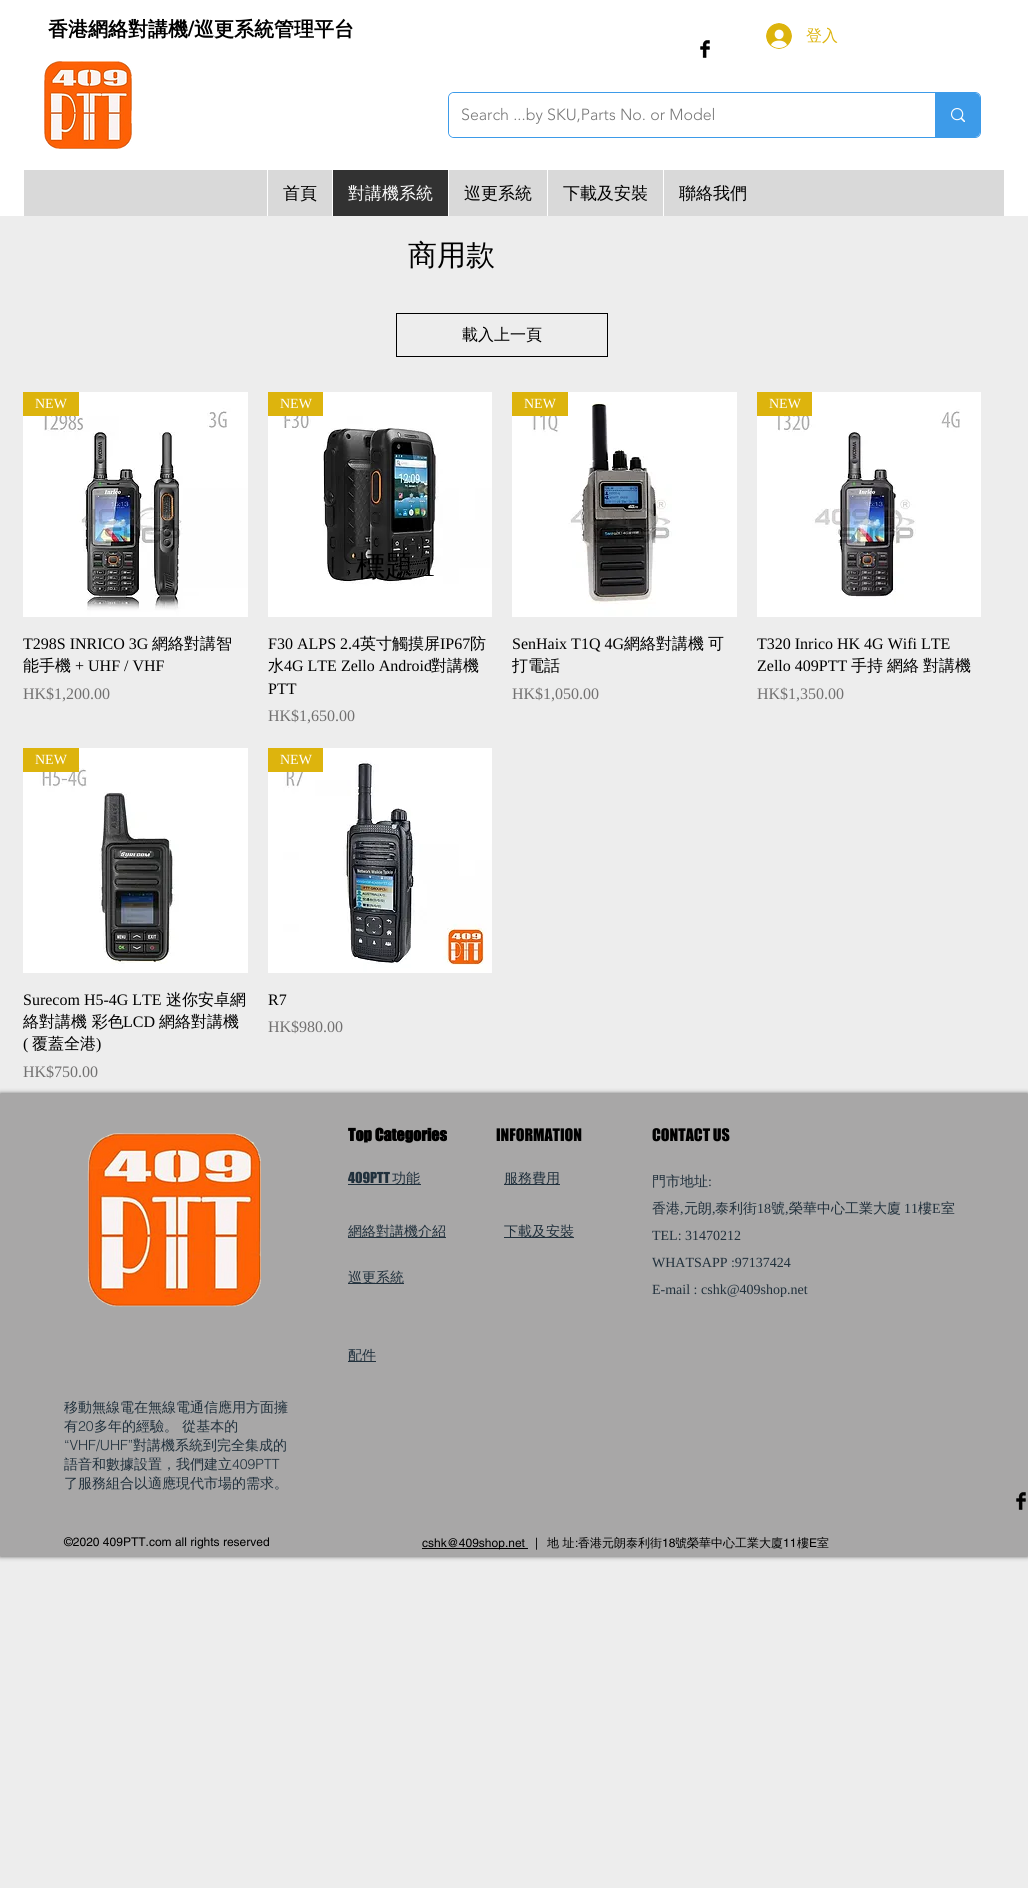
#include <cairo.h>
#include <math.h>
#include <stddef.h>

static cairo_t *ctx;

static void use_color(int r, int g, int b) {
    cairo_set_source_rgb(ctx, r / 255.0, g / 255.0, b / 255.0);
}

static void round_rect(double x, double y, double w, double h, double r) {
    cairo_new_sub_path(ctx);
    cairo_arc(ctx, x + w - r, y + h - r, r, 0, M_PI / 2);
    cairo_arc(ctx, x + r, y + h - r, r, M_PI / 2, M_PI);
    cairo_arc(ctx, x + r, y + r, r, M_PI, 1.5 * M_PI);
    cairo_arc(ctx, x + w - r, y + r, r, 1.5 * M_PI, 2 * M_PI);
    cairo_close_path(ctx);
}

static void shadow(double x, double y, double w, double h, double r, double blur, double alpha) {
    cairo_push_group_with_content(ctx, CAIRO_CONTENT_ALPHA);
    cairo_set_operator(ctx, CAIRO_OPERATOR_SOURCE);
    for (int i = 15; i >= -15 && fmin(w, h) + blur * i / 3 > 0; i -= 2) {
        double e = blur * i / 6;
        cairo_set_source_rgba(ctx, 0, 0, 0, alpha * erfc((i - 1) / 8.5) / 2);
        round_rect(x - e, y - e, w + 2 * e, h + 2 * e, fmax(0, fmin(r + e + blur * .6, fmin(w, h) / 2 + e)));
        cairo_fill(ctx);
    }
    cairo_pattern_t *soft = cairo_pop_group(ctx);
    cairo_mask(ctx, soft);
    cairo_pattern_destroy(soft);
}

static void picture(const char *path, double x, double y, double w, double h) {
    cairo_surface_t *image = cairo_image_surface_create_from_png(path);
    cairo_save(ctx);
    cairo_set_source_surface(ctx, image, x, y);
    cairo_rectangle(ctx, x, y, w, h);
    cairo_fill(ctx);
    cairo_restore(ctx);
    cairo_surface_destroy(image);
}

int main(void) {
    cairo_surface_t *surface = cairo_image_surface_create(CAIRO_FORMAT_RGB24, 1028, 1888);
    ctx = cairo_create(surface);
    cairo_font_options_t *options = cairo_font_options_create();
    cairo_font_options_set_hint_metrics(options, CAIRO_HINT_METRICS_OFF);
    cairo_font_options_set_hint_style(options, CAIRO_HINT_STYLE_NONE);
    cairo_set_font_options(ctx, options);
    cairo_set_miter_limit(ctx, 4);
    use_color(237, 237, 237);
    cairo_paint(ctx);
    use_color(255, 255, 255);
    cairo_rectangle(ctx, 0, 0, 1028, 216);
    cairo_fill(ctx);
    cairo_select_font_face(ctx, "WenQuanYi Zen Hei", CAIRO_FONT_SLANT_NORMAL, CAIRO_FONT_WEIGHT_BOLD);
    cairo_set_font_size(ctx, 20);
    use_color(0, 0, 0);
    cairo_move_to(ctx, 48, 36);
    cairo_show_text(ctx, "香港網絡對講機");
    cairo_select_font_face(ctx, "helvetica", CAIRO_FONT_SLANT_NORMAL, CAIRO_FONT_WEIGHT_BOLD);
    cairo_move_to(ctx, 188, 36);
    cairo_show_text(ctx, "/");
    cairo_select_font_face(ctx, "WenQuanYi Zen Hei", CAIRO_FONT_SLANT_NORMAL, CAIRO_FONT_WEIGHT_BOLD);
    cairo_move_to(ctx, 194, 36);
    cairo_show_text(ctx, "巡更系統管理平台");
    picture("img1.png", 766, 23, 26, 26);
    cairo_select_font_face(ctx, "WenQuanYi Zen Hei Medium", CAIRO_FONT_SLANT_NORMAL, CAIRO_FONT_WEIGHT_NORMAL);
    cairo_set_font_size(ctx, 16);
    use_color(221, 180, 13);
    cairo_move_to(ctx, 806, 41);
    cairo_show_text(ctx, "登入");
    picture("img2.png", 700, 40, 10, 18);
    picture("img3.png", 44, 61, 88, 88);
    round_rect(448.5, 92.5, 532, 45, 5.5);
    use_color(61, 155, 233);
    cairo_set_line_width(ctx, 1);
    cairo_stroke(ctx);
    use_color(255, 255, 255);
    round_rect(449, 93, 531, 44, 5);
    cairo_fill(ctx);
    cairo_select_font_face(ctx, "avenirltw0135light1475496 Light", CAIRO_FONT_SLANT_NORMAL, CAIRO_FONT_WEIGHT_NORMAL);
    use_color(120, 120, 120);
    cairo_move_to(ctx, 461, 120);
    cairo_show_text(ctx, "Search ...by SKU,Parts No. or Model");
    use_color(61, 155, 233);
    cairo_new_path(ctx);
    cairo_move_to(ctx, 935, 93);
    cairo_line_to(ctx, 975, 93);
    cairo_curve_to(ctx, 978, 93, 980, 95, 980, 98);
    cairo_line_to(ctx, 980, 132);
    cairo_curve_to(ctx, 980, 135, 978, 137, 975, 137);
    cairo_line_to(ctx, 935, 137);
    cairo_close_path(ctx);
    cairo_fill(ctx);
    picture("img4.png", 951, 108, 14, 14);
    use_color(217, 217, 217);
    cairo_rectangle(ctx, 24, 170, 980, 46);
    cairo_fill(ctx);
    use_color(255, 255, 255);
    cairo_rectangle(ctx, 267, 170, 1, 46);
    cairo_fill(ctx);
    cairo_select_font_face(ctx, "WenQuanYi Zen Hei Medium", CAIRO_FONT_SLANT_NORMAL, CAIRO_FONT_WEIGHT_NORMAL);
    cairo_set_font_size(ctx, 17);
    use_color(0, 0, 0);
    cairo_move_to(ctx, 283, 199);
    cairo_show_text(ctx, "首頁");
    use_color(50, 50, 50);
    cairo_rectangle(ctx, 333, 170, 115, 46);
    cairo_fill(ctx);
    use_color(255, 255, 255);
    cairo_rectangle(ctx, 332, 170, 1, 46);
    cairo_fill(ctx);
    cairo_move_to(ctx, 348, 199);
    cairo_show_text(ctx, "對講機系統");
    cairo_rectangle(ctx, 448, 170, 1, 46);
    cairo_fill(ctx);
    use_color(0, 0, 0);
    cairo_move_to(ctx, 464, 199);
    cairo_show_text(ctx, "巡更系統");
    use_color(255, 255, 255);
    cairo_rectangle(ctx, 547, 170, 1, 46);
    cairo_fill(ctx);
    use_color(0, 0, 0);
    cairo_move_to(ctx, 563, 199);
    cairo_show_text(ctx, "下載及安裝");
    use_color(255, 255, 255);
    cairo_rectangle(ctx, 663, 170, 1, 46);
    cairo_fill(ctx);
    use_color(0, 0, 0);
    cairo_move_to(ctx, 679, 199);
    cairo_show_text(ctx, "聯絡我們");
    cairo_set_font_size(ctx, 29);
    cairo_move_to(ctx, 408, 265);
    cairo_show_text(ctx, "商用款");
    cairo_rectangle(ctx, 396.5, 313.5, 211, 43);
    cairo_stroke(ctx);
    cairo_set_font_size(ctx, 16);
    cairo_move_to(ctx, 462, 340);
    cairo_show_text(ctx, "載入上一頁");
    picture("img5.png", 23, 392, 225, 225);
    use_color(221, 180, 13);
    cairo_rectangle(ctx, 23, 392, 56, 24);
    cairo_fill(ctx);
    cairo_select_font_face(ctx, "Liberation Serif", CAIRO_FONT_SLANT_NORMAL, CAIRO_FONT_WEIGHT_NORMAL);
    cairo_set_font_size(ctx, 14);
    use_color(255, 255, 255);
    cairo_move_to(ctx, 35, 408);
    cairo_show_text(ctx, "NEW");
    cairo_set_font_size(ctx, 16);
    use_color(0, 0, 0);
    cairo_move_to(ctx, 23, 649);
    cairo_show_text(ctx, "T298S INRICO 3G");
    cairo_select_font_face(ctx, "WenQuanYi Zen Hei Medium", CAIRO_FONT_SLANT_NORMAL, CAIRO_FONT_WEIGHT_NORMAL);
    cairo_move_to(ctx, 152, 649);
    cairo_show_text(ctx, "網絡對講智");
    cairo_move_to(ctx, 23, 671);
    cairo_show_text(ctx, "能手機");
    cairo_select_font_face(ctx, "Liberation Serif", CAIRO_FONT_SLANT_NORMAL, CAIRO_FONT_WEIGHT_NORMAL);
    cairo_move_to(ctx, 75, 671);
    cairo_show_text(ctx, "+ UHF / VHF");
    use_color(113, 112, 112);
    cairo_move_to(ctx, 23, 699);
    cairo_show_text(ctx, "HK$1,200.00");
    picture("img6.png", 268, 392, 224, 225);
    use_color(221, 180, 13);
    cairo_rectangle(ctx, 268, 392, 55, 24);
    cairo_fill(ctx);
    cairo_set_font_size(ctx, 14);
    use_color(255, 255, 255);
    cairo_move_to(ctx, 280, 408);
    cairo_show_text(ctx, "NEW");
    cairo_set_font_size(ctx, 16);
    use_color(0, 0, 0);
    cairo_move_to(ctx, 268, 649);
    cairo_show_text(ctx, "F30 ALPS 2.4");
    cairo_select_font_face(ctx, "WenQuanYi Zen Hei Medium", CAIRO_FONT_SLANT_NORMAL, CAIRO_FONT_WEIGHT_NORMAL);
    cairo_move_to(ctx, 360, 649);
    cairo_show_text(ctx, "英寸觸摸屏");
    cairo_select_font_face(ctx, "Liberation Serif", CAIRO_FONT_SLANT_NORMAL, CAIRO_FONT_WEIGHT_NORMAL);
    cairo_move_to(ctx, 440, 649);
    cairo_show_text(ctx, "IP67");
    cairo_select_font_face(ctx, "WenQuanYi Zen Hei Medium", CAIRO_FONT_SLANT_NORMAL, CAIRO_FONT_WEIGHT_NORMAL);
    cairo_move_to(ctx, 470, 649);
    cairo_show_text(ctx, "防");
    cairo_move_to(ctx, 268, 671);
    cairo_show_text(ctx, "水");
    cairo_select_font_face(ctx, "Liberation Serif", CAIRO_FONT_SLANT_NORMAL, CAIRO_FONT_WEIGHT_NORMAL);
    cairo_move_to(ctx, 284, 671);
    cairo_show_text(ctx, "4G LTE Zello Android");
    cairo_select_font_face(ctx, "WenQuanYi Zen Hei Medium", CAIRO_FONT_SLANT_NORMAL, CAIRO_FONT_WEIGHT_NORMAL);
    cairo_move_to(ctx, 431, 671);
    cairo_show_text(ctx, "對講機");
    cairo_select_font_face(ctx, "Liberation Serif", CAIRO_FONT_SLANT_NORMAL, CAIRO_FONT_WEIGHT_NORMAL);
    cairo_move_to(ctx, 268, 694);
    cairo_show_text(ctx, "PTT");
    use_color(113, 112, 112);
    cairo_move_to(ctx, 268, 721);
    cairo_show_text(ctx, "HK$1,650.00");
    picture("img7.png", 512, 392, 225, 225);
    use_color(221, 180, 13);
    cairo_rectangle(ctx, 512, 392, 56, 24);
    cairo_fill(ctx);
    cairo_set_font_size(ctx, 14);
    use_color(255, 255, 255);
    cairo_move_to(ctx, 524, 408);
    cairo_show_text(ctx, "NEW");
    cairo_set_font_size(ctx, 16);
    use_color(0, 0, 0);
    cairo_move_to(ctx, 512, 649);
    cairo_show_text(ctx, "SenHaix T1Q 4G");
    cairo_select_font_face(ctx, "WenQuanYi Zen Hei Medium", CAIRO_FONT_SLANT_NORMAL, CAIRO_FONT_WEIGHT_NORMAL);
    cairo_move_to(ctx, 624, 649);
    cairo_show_text(ctx, "網絡對講機");
    cairo_move_to(ctx, 708, 649);
    cairo_show_text(ctx, "可");
    cairo_move_to(ctx, 512, 671);
    cairo_show_text(ctx, "打電話");
    cairo_select_font_face(ctx, "Liberation Serif", CAIRO_FONT_SLANT_NORMAL, CAIRO_FONT_WEIGHT_NORMAL);
    use_color(113, 112, 112);
    cairo_move_to(ctx, 512, 699);
    cairo_show_text(ctx, "HK$1,050.00");
    picture("img8.png", 757, 392, 224, 225);
    use_color(221, 180, 13);
    cairo_rectangle(ctx, 757, 392, 55, 24);
    cairo_fill(ctx);
    cairo_set_font_size(ctx, 14);
    use_color(255, 255, 255);
    cairo_move_to(ctx, 769, 408);
    cairo_show_text(ctx, "NEW");
    cairo_set_font_size(ctx, 16);
    use_color(0, 0, 0);
    cairo_move_to(ctx, 757, 649);
    cairo_show_text(ctx, "T320 Inrico HK 4G Wifi LTE");
    cairo_move_to(ctx, 757, 671);
    cairo_show_text(ctx, "Zello 409PTT");
    cairo_select_font_face(ctx, "WenQuanYi Zen Hei Medium", CAIRO_FONT_SLANT_NORMAL, CAIRO_FONT_WEIGHT_NORMAL);
    cairo_move_to(ctx, 851, 671);
    cairo_show_text(ctx, "手持");
    cairo_move_to(ctx, 887, 671);
    cairo_show_text(ctx, "網絡");
    cairo_move_to(ctx, 923, 671);
    cairo_show_text(ctx, "對講機");
    cairo_select_font_face(ctx, "Liberation Serif", CAIRO_FONT_SLANT_NORMAL, CAIRO_FONT_WEIGHT_NORMAL);
    use_color(113, 112, 112);
    cairo_move_to(ctx, 757, 699);
    cairo_show_text(ctx, "HK$1,350.00");
    picture("img9.png", 23, 748, 225, 225);
    use_color(221, 180, 13);
    cairo_rectangle(ctx, 23, 748, 56, 24);
    cairo_fill(ctx);
    cairo_set_font_size(ctx, 14);
    use_color(255, 255, 255);
    cairo_move_to(ctx, 35, 764);
    cairo_show_text(ctx, "NEW");
    cairo_set_font_size(ctx, 16);
    use_color(0, 0, 0);
    cairo_move_to(ctx, 23, 1005);
    cairo_show_text(ctx, "Surecom H5-4G LTE");
    cairo_select_font_face(ctx, "WenQuanYi Zen Hei Medium", CAIRO_FONT_SLANT_NORMAL, CAIRO_FONT_WEIGHT_NORMAL);
    cairo_move_to(ctx, 166, 1005);
    cairo_show_text(ctx, "迷你安卓網");
    cairo_move_to(ctx, 23, 1027);
    cairo_show_text(ctx, "絡對講機 彩色");
    cairo_select_font_face(ctx, "Liberation Serif", CAIRO_FONT_SLANT_NORMAL, CAIRO_FONT_WEIGHT_NORMAL);
    cairo_move_to(ctx, 123, 1027);
    cairo_show_text(ctx, "LCD");
    cairo_select_font_face(ctx, "WenQuanYi Zen Hei Medium", CAIRO_FONT_SLANT_NORMAL, CAIRO_FONT_WEIGHT_NORMAL);
    cairo_move_to(ctx, 159, 1027);
    cairo_show_text(ctx, "網絡對講機");
    cairo_select_font_face(ctx, "Liberation Serif", CAIRO_FONT_SLANT_NORMAL, CAIRO_FONT_WEIGHT_NORMAL);
    cairo_move_to(ctx, 23, 1049);
    cairo_show_text(ctx, "(");
    cairo_select_font_face(ctx, "WenQuanYi Zen Hei Medium", CAIRO_FONT_SLANT_NORMAL, CAIRO_FONT_WEIGHT_NORMAL);
    cairo_move_to(ctx, 32, 1049);
    cairo_show_text(ctx, "覆蓋全港");
    cairo_select_font_face(ctx, "Liberation Serif", CAIRO_FONT_SLANT_NORMAL, CAIRO_FONT_WEIGHT_NORMAL);
    cairo_move_to(ctx, 96, 1049);
    cairo_show_text(ctx, ")");
    use_color(113, 112, 112);
    cairo_move_to(ctx, 23, 1077);
    cairo_show_text(ctx, "HK$750.00");
    picture("img10.png", 268, 748, 224, 225);
    use_color(221, 180, 13);
    cairo_rectangle(ctx, 268, 748, 55, 24);
    cairo_fill(ctx);
    cairo_set_font_size(ctx, 14);
    use_color(255, 255, 255);
    cairo_move_to(ctx, 280, 764);
    cairo_show_text(ctx, "NEW");
    cairo_set_font_size(ctx, 16);
    use_color(0, 0, 0);
    cairo_move_to(ctx, 268, 1005);
    cairo_show_text(ctx, "R7");
    use_color(113, 112, 112);
    cairo_move_to(ctx, 268, 1032);
    cairo_show_text(ctx, "HK$980.00");
    cairo_select_font_face(ctx, "WenQuanYi Zen Hei Medium", CAIRO_FONT_SLANT_NORMAL, CAIRO_FONT_WEIGHT_NORMAL);
    cairo_set_font_size(ctx, 29);
    use_color(0, 0, 0);
    cairo_move_to(ctx, 356, 576);
    cairo_show_text(ctx, "標題");
    cairo_select_font_face(ctx, "Liberation Serif", CAIRO_FONT_SLANT_NORMAL, CAIRO_FONT_WEIGHT_NORMAL);
    cairo_move_to(ctx, 421, 576);
    cairo_show_text(ctx, "1");
    use_color(0, 0, 0);
    shadow(0, 1094, 1028, 462, 0, 2.5, 0.7);
    use_color(168, 167, 167);
    cairo_rectangle(ctx, 0, 1094, 1028, 462);
    cairo_fill(ctx);
    picture("img11.png", 87, 1133, 174, 174);
    cairo_select_font_face(ctx, "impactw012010", CAIRO_FONT_SLANT_NORMAL, CAIRO_FONT_WEIGHT_BOLD);
    cairo_set_font_size(ctx, 16);
    use_color(0, 0, 0);
    cairo_move_to(ctx, 348, 1141);
    cairo_show_text(ctx, "Top Categories");
    cairo_select_font_face(ctx, "impactw012010", CAIRO_FONT_SLANT_NORMAL, CAIRO_FONT_WEIGHT_NORMAL);
    cairo_move_to(ctx, 496, 1141);
    cairo_show_text(ctx, "INFORMATION");
    cairo_move_to(ctx, 652, 1141);
    cairo_show_text(ctx, "CONTACT US");
    cairo_set_font_size(ctx, 14);
    use_color(32, 48, 60);
    cairo_move_to(ctx, 348, 1183);
    cairo_show_text(ctx, "409PTT");
    cairo_rectangle(ctx, 348, 1184, 73, 1);
    cairo_fill(ctx);
    cairo_select_font_face(ctx, "WenQuanYi Zen Hei Medium", CAIRO_FONT_SLANT_NORMAL, CAIRO_FONT_WEIGHT_NORMAL);
    cairo_move_to(ctx, 392, 1183);
    cairo_show_text(ctx, "功能");
    cairo_rectangle(ctx, 504, 1184, 56, 1);
    cairo_fill(ctx);
    cairo_move_to(ctx, 504, 1183);
    cairo_show_text(ctx, "服務費用");
    cairo_move_to(ctx, 652, 1186);
    cairo_show_text(ctx, "門市地址");
    cairo_select_font_face(ctx, "Liberation Serif", CAIRO_FONT_SLANT_NORMAL, CAIRO_FONT_WEIGHT_NORMAL);
    cairo_move_to(ctx, 708, 1186);
    cairo_show_text(ctx, ":");
    cairo_select_font_face(ctx, "WenQuanYi Zen Hei Medium", CAIRO_FONT_SLANT_NORMAL, CAIRO_FONT_WEIGHT_NORMAL);
    cairo_move_to(ctx, 652, 1213);
    cairo_show_text(ctx, "香港");
    cairo_move_to(ctx, 684, 1213);
    cairo_show_text(ctx, "元朗");
    cairo_move_to(ctx, 715, 1213);
    cairo_show_text(ctx, "泰利街");
    cairo_select_font_face(ctx, "Liberation Serif", CAIRO_FONT_SLANT_NORMAL, CAIRO_FONT_WEIGHT_NORMAL);
    cairo_move_to(ctx, 757, 1213);
    cairo_show_text(ctx, "18");
    cairo_select_font_face(ctx, "WenQuanYi Zen Hei Medium", CAIRO_FONT_SLANT_NORMAL, CAIRO_FONT_WEIGHT_NORMAL);
    cairo_move_to(ctx, 771, 1213);
    cairo_show_text(ctx, "號");
    cairo_move_to(ctx, 789, 1213);
    cairo_show_text(ctx, "榮華中心工業大廈");
    cairo_select_font_face(ctx, "Liberation Serif", CAIRO_FONT_SLANT_NORMAL, CAIRO_FONT_WEIGHT_NORMAL);
    cairo_move_to(ctx, 904, 1213);
    cairo_show_text(ctx, "11");
    cairo_select_font_face(ctx, "WenQuanYi Zen Hei Medium", CAIRO_FONT_SLANT_NORMAL, CAIRO_FONT_WEIGHT_NORMAL);
    cairo_move_to(ctx, 918, 1213);
    cairo_show_text(ctx, "樓");
    cairo_select_font_face(ctx, "Liberation Serif", CAIRO_FONT_SLANT_NORMAL, CAIRO_FONT_WEIGHT_NORMAL);
    cairo_move_to(ctx, 932, 1213);
    cairo_show_text(ctx, "E");
    cairo_select_font_face(ctx, "WenQuanYi Zen Hei Medium", CAIRO_FONT_SLANT_NORMAL, CAIRO_FONT_WEIGHT_NORMAL);
    cairo_move_to(ctx, 941, 1213);
    cairo_show_text(ctx, "室");
    cairo_select_font_face(ctx, "Liberation Serif", CAIRO_FONT_SLANT_NORMAL, CAIRO_FONT_WEIGHT_NORMAL);
    cairo_move_to(ctx, 680, 1213);
    cairo_show_text(ctx, ",");
    cairo_move_to(ctx, 712, 1213);
    cairo_show_text(ctx, ",");
    cairo_move_to(ctx, 785, 1213);
    cairo_show_text(ctx, ",");
    cairo_move_to(ctx, 652, 1240);
    cairo_show_text(ctx, "TEL: 31470212");
    cairo_move_to(ctx, 652, 1267);
    cairo_show_text(ctx, "WHATSAPP :97137424");
    cairo_move_to(ctx, 652, 1294);
    cairo_show_text(ctx, "E-mail : cshk@409shop.net");
    cairo_rectangle(ctx, 348, 1237, 98, 1);
    cairo_fill(ctx);
    cairo_select_font_face(ctx, "WenQuanYi Zen Hei Medium", CAIRO_FONT_SLANT_NORMAL, CAIRO_FONT_WEIGHT_NORMAL);
    cairo_move_to(ctx, 348, 1236);
    cairo_show_text(ctx, "網絡對講機介紹");
    cairo_rectangle(ctx, 504, 1237, 70, 1);
    cairo_fill(ctx);
    cairo_move_to(ctx, 504, 1236);
    cairo_show_text(ctx, "下載及安裝");
    cairo_rectangle(ctx, 348, 1283, 56, 1);
    cairo_fill(ctx);
    cairo_move_to(ctx, 348, 1282);
    cairo_show_text(ctx, "巡更系統");
    cairo_rectangle(ctx, 348, 1361, 28, 1);
    cairo_fill(ctx);
    cairo_move_to(ctx, 348, 1360);
    cairo_show_text(ctx, "配件");
    cairo_move_to(ctx, 64, 1412);
    cairo_show_text(ctx, "移動無線電在無線電通信應用方面擁");
    cairo_move_to(ctx, 64, 1431);
    cairo_show_text(ctx, "有");
    cairo_select_font_face(ctx, "helvetica Light", CAIRO_FONT_SLANT_NORMAL, CAIRO_FONT_WEIGHT_NORMAL);
    cairo_move_to(ctx, 78, 1431);
    cairo_show_text(ctx, "20");
    cairo_select_font_face(ctx, "WenQuanYi Zen Hei Medium", CAIRO_FONT_SLANT_NORMAL, CAIRO_FONT_WEIGHT_NORMAL);
    cairo_move_to(ctx, 94, 1431);
    cairo_show_text(ctx, "多年的經驗。 從基本的");
    cairo_select_font_face(ctx, "helvetica Light", CAIRO_FONT_SLANT_NORMAL, CAIRO_FONT_WEIGHT_NORMAL);
    cairo_move_to(ctx, 64, 1450);
    cairo_show_text(ctx, "“VHF/UHF”");
    cairo_select_font_face(ctx, "WenQuanYi Zen Hei Medium", CAIRO_FONT_SLANT_NORMAL, CAIRO_FONT_WEIGHT_NORMAL);
    cairo_move_to(ctx, 133, 1450);
    cairo_show_text(ctx, "對講機系統到完全集成的");
    cairo_move_to(ctx, 64, 1469);
    cairo_show_text(ctx, "語音和數據設置，我們建立");
    cairo_select_font_face(ctx, "helvetica Light", CAIRO_FONT_SLANT_NORMAL, CAIRO_FONT_WEIGHT_NORMAL);
    cairo_move_to(ctx, 232, 1469);
    cairo_show_text(ctx, "409PTT");
    cairo_select_font_face(ctx, "WenQuanYi Zen Hei Medium", CAIRO_FONT_SLANT_NORMAL, CAIRO_FONT_WEIGHT_NORMAL);
    cairo_move_to(ctx, 64, 1488);
    cairo_show_text(ctx, "了服務組合以適應現代市場的需求。");
    picture("img12.png", 1016, 1492, 10, 18);
    cairo_select_font_face(ctx, "helvetica", CAIRO_FONT_SLANT_NORMAL, CAIRO_FONT_WEIGHT_NORMAL);
    cairo_set_font_size(ctx, 12);
    use_color(0, 0, 0);
    cairo_move_to(ctx, 64, 1546);
    cairo_show_text(ctx, "©2020 409PTT.com all rights reserved");
    cairo_rectangle(ctx, 422, 1548, 106, 1);
    cairo_fill(ctx);
    cairo_move_to(ctx, 422, 1547);
    cairo_show_text(ctx, "cshk@409shop.net");
    cairo_move_to(ctx, 535, 1547);
    cairo_show_text(ctx, "|");
    cairo_select_font_face(ctx, "WenQuanYi Zen Hei Medium", CAIRO_FONT_SLANT_NORMAL, CAIRO_FONT_WEIGHT_NORMAL);
    cairo_move_to(ctx, 547, 1547);
    cairo_show_text(ctx, "地 址");
    cairo_select_font_face(ctx, "helvetica", CAIRO_FONT_SLANT_NORMAL, CAIRO_FONT_WEIGHT_NORMAL);
    cairo_move_to(ctx, 575, 1547);
    cairo_show_text(ctx, ":");
    cairo_select_font_face(ctx, "WenQuanYi Zen Hei Medium", CAIRO_FONT_SLANT_NORMAL, CAIRO_FONT_WEIGHT_NORMAL);
    cairo_move_to(ctx, 578, 1547);
    cairo_show_text(ctx, "香港元朗泰利街");
    cairo_select_font_face(ctx, "helvetica", CAIRO_FONT_SLANT_NORMAL, CAIRO_FONT_WEIGHT_NORMAL);
    cairo_move_to(ctx, 662, 1547);
    cairo_show_text(ctx, "18");
    cairo_select_font_face(ctx, "WenQuanYi Zen Hei Medium", CAIRO_FONT_SLANT_NORMAL, CAIRO_FONT_WEIGHT_NORMAL);
    cairo_move_to(ctx, 675, 1547);
    cairo_show_text(ctx, "號榮華中心工業大廈");
    cairo_select_font_face(ctx, "helvetica", CAIRO_FONT_SLANT_NORMAL, CAIRO_FONT_WEIGHT_NORMAL);
    cairo_move_to(ctx, 783, 1547);
    cairo_show_text(ctx, "11");
    cairo_select_font_face(ctx, "WenQuanYi Zen Hei Medium", CAIRO_FONT_SLANT_NORMAL, CAIRO_FONT_WEIGHT_NORMAL);
    cairo_move_to(ctx, 797, 1547);
    cairo_show_text(ctx, "樓");
    cairo_select_font_face(ctx, "helvetica", CAIRO_FONT_SLANT_NORMAL, CAIRO_FONT_WEIGHT_NORMAL);
    cairo_move_to(ctx, 809, 1547);
    cairo_show_text(ctx, "E");
    cairo_select_font_face(ctx, "WenQuanYi Zen Hei Medium", CAIRO_FONT_SLANT_NORMAL, CAIRO_FONT_WEIGHT_NORMAL);
    cairo_move_to(ctx, 817, 1547);
    cairo_show_text(ctx, "室");
    cairo_surface_write_to_png(surface, "result.png");
    cairo_font_options_destroy(options);
    cairo_destroy(ctx);
    cairo_surface_destroy(surface);
    return 0;
}
